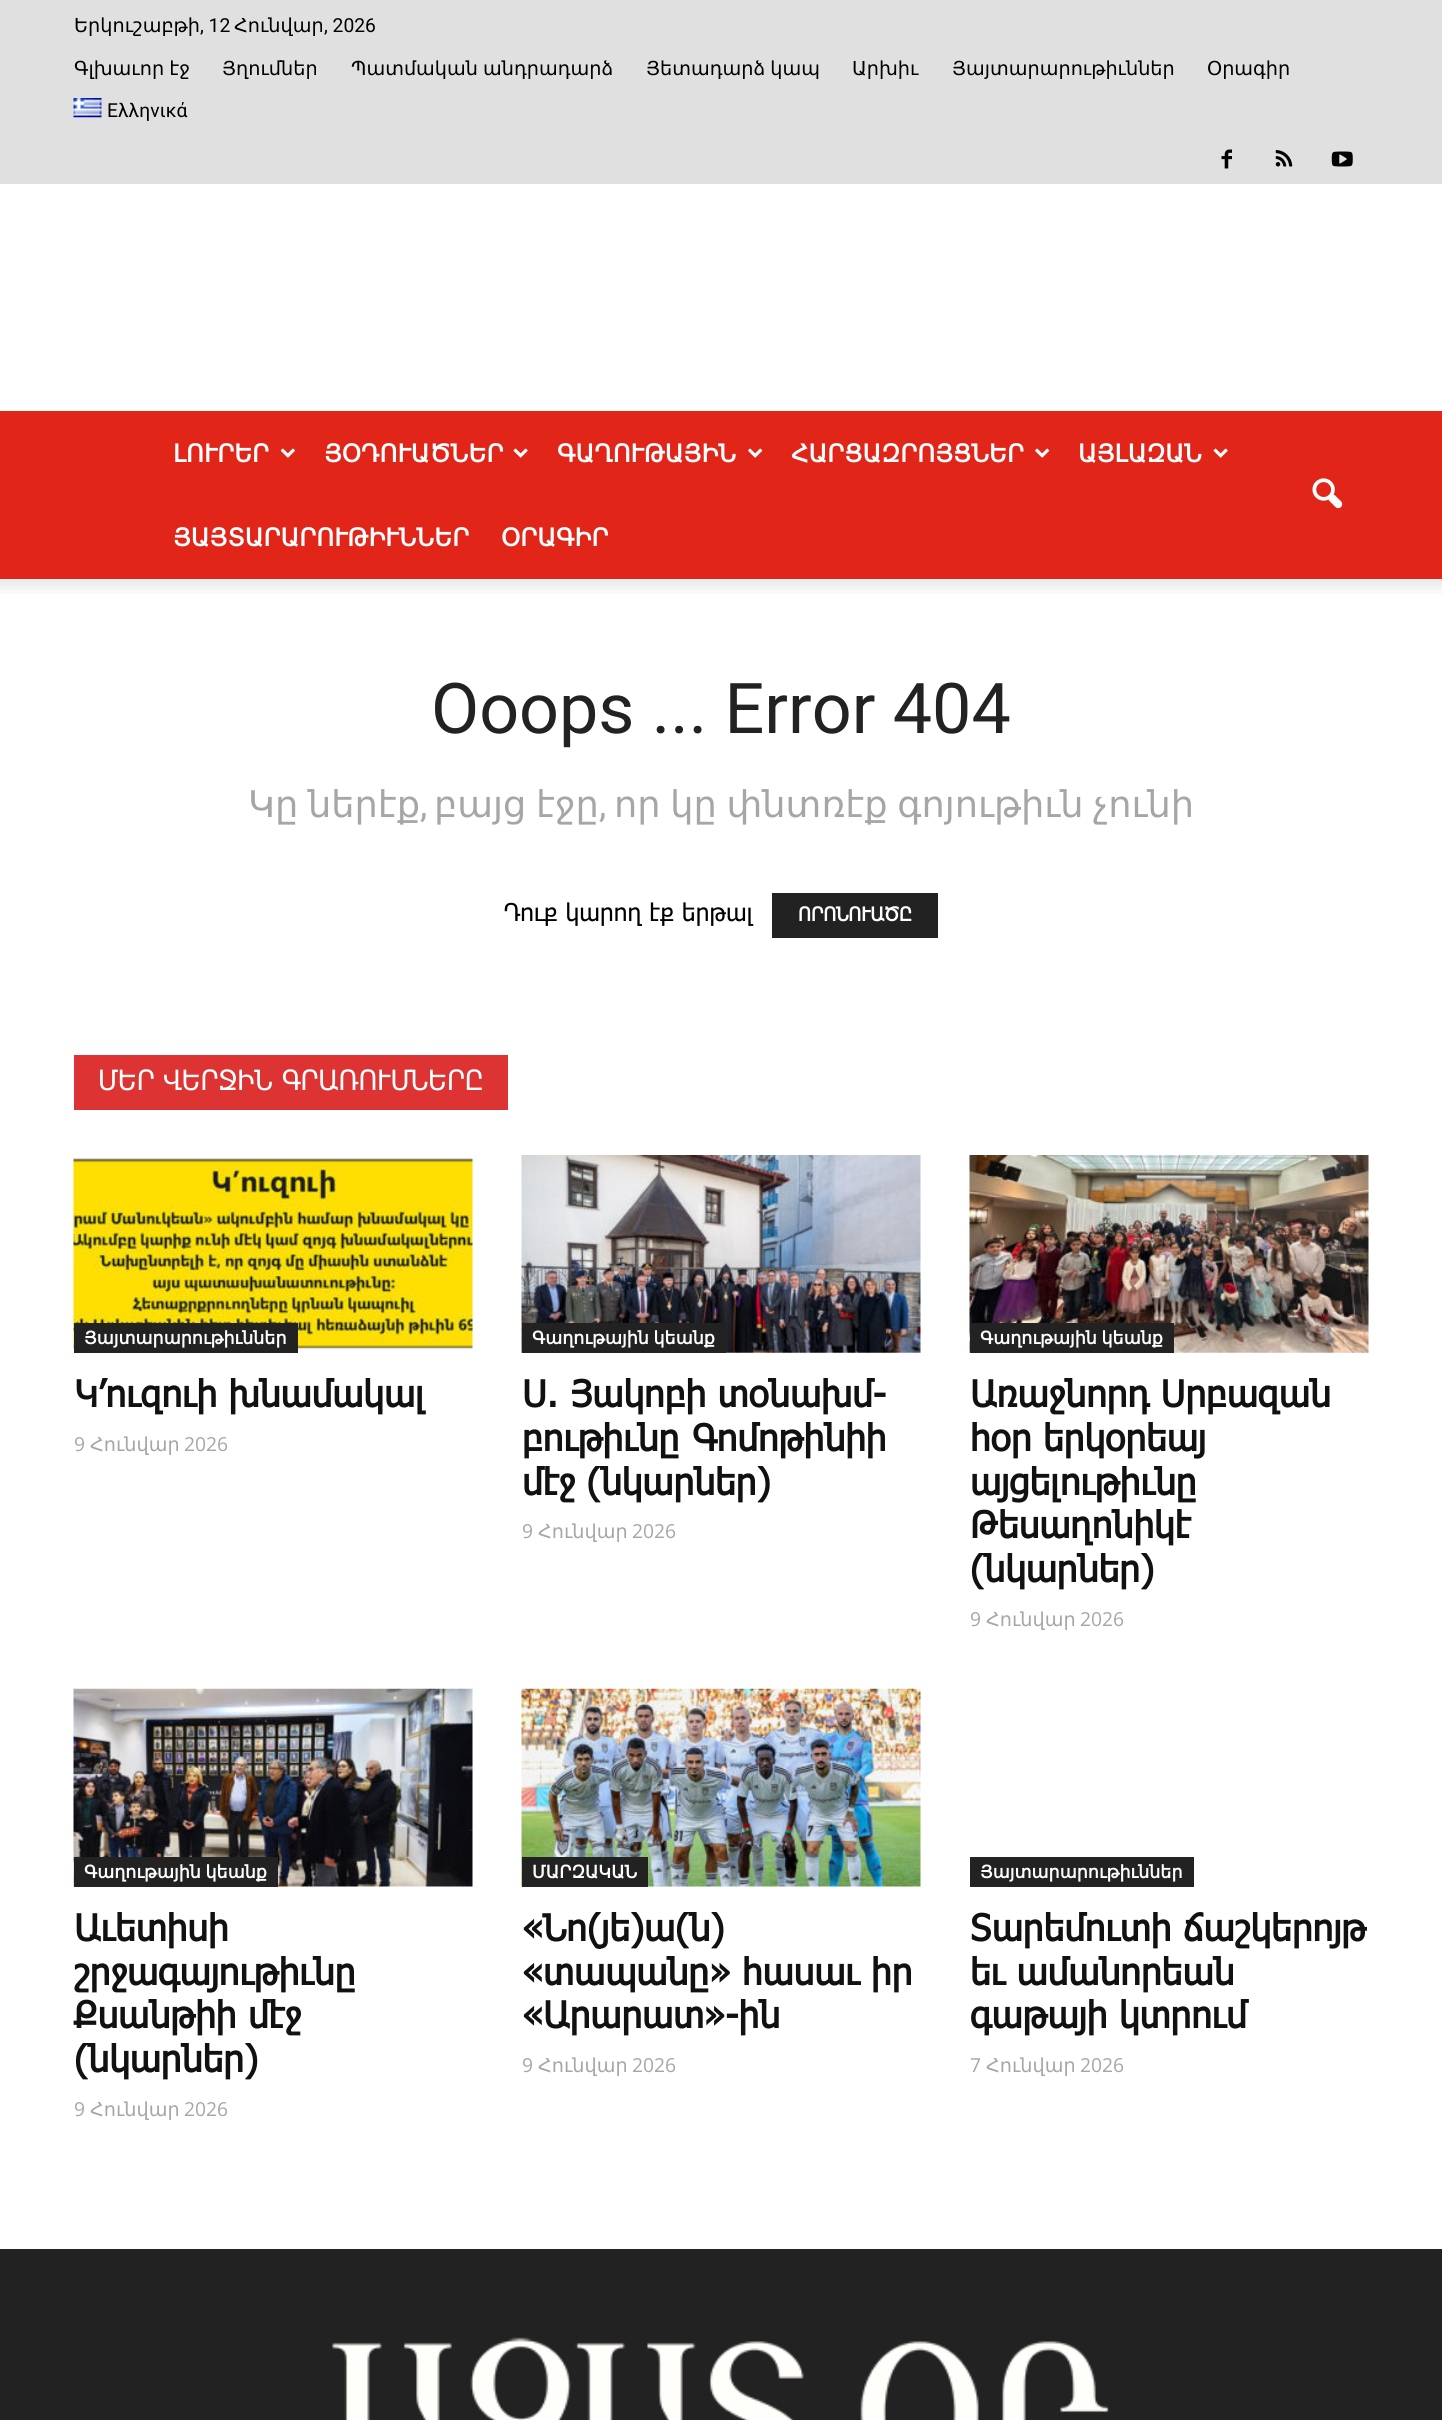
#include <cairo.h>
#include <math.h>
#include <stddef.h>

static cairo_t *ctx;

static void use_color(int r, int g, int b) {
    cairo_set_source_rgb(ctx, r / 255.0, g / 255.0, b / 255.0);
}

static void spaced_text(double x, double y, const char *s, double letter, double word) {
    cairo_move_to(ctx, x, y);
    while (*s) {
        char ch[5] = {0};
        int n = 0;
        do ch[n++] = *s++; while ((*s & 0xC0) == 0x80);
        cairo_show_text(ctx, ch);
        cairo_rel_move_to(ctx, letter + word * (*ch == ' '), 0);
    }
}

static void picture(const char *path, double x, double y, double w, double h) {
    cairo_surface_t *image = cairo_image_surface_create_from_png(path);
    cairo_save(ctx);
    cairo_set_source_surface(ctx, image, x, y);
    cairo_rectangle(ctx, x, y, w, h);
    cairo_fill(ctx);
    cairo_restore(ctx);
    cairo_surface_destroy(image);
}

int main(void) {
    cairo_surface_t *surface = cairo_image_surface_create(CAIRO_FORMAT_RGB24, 1442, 2420);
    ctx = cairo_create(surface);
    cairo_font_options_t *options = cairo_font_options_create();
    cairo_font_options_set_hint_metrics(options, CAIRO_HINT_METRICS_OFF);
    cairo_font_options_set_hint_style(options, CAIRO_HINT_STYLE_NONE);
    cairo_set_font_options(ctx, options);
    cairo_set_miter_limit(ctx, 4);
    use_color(255, 255, 255);
    cairo_paint(ctx);
    use_color(224, 224, 224);
    cairo_rectangle(ctx, 0, 0, 1442, 184);
    cairo_fill(ctx);
    cairo_select_font_face(ctx, "DejaVu Sans", CAIRO_FONT_SLANT_NORMAL, CAIRO_FONT_WEIGHT_NORMAL);
    cairo_set_font_size(ctx, 19.25);
    use_color(0, 0, 0);
    cairo_move_to(ctx, 74, 32);
    cairo_show_text(ctx, "Երկուշաբթի");
    cairo_select_font_face(ctx, "Roboto", CAIRO_FONT_SLANT_NORMAL, CAIRO_FONT_WEIGHT_NORMAL);
    cairo_move_to(ctx, 200, 32);
    cairo_show_text(ctx, ", 12");
    cairo_select_font_face(ctx, "DejaVu Sans", CAIRO_FONT_SLANT_NORMAL, CAIRO_FONT_WEIGHT_NORMAL);
    cairo_move_to(ctx, 234, 32);
    cairo_show_text(ctx, "Հունվար");
    cairo_select_font_face(ctx, "Roboto", CAIRO_FONT_SLANT_NORMAL, CAIRO_FONT_WEIGHT_NORMAL);
    cairo_move_to(ctx, 324, 32);
    cairo_show_text(ctx, ", 2026");
    cairo_select_font_face(ctx, "DejaVu Sans", CAIRO_FONT_SLANT_NORMAL, CAIRO_FONT_WEIGHT_NORMAL);
    spaced_text(74, 75, "Գլխաւոր էջ", 0, -1);
    cairo_move_to(ctx, 222, 75);
    cairo_show_text(ctx, "Յղումներ");
    spaced_text(351, 75, "Պատմական անդրադարձ", 0, -1);
    spaced_text(646, 75, "Յետադարձ կապ", 0, -1);
    cairo_move_to(ctx, 852, 75);
    cairo_show_text(ctx, "Արխիւ");
    cairo_move_to(ctx, 952, 75);
    cairo_show_text(ctx, "Յայտարարութիւններ");
    cairo_move_to(ctx, 1207, 75);
    cairo_show_text(ctx, "Օրագիր");
    picture("img1.png", 73, 98, 29, 20);
    cairo_select_font_face(ctx, "Roboto", CAIRO_FONT_SLANT_NORMAL, CAIRO_FONT_WEIGHT_NORMAL);
    cairo_move_to(ctx, 107, 117);
    cairo_show_text(ctx, "Ελληνικά");
    picture("img2.png", 1221, 149, 11, 20);
    picture("img3.png", 1275, 150, 18, 17);
    picture("img4.png", 1331, 151, 22, 16);
    use_color(225, 37, 25);
    cairo_rectangle(ctx, 0, 411, 1442, 168);
    cairo_fill(ctx);
    cairo_select_font_face(ctx, "DejaVu Sans", CAIRO_FONT_SLANT_NORMAL, CAIRO_FONT_WEIGHT_BOLD);
    cairo_set_font_size(ctx, 24.5);
    use_color(255, 255, 255);
    cairo_move_to(ctx, 173, 462);
    cairo_show_text(ctx, "ԼՈՒՐԵՐ");
    picture("img5.png", 280, 448, 15, 10);
    cairo_move_to(ctx, 324, 462);
    cairo_show_text(ctx, "ՅՕԴՈՒԱԾՆԵՐ");
    picture("img6.png", 513, 448, 15, 10);
    cairo_move_to(ctx, 557, 462);
    cairo_show_text(ctx, "ԳԱՂՈՒԹԱՅԻՆ");
    picture("img7.png", 748, 448, 15, 10);
    cairo_move_to(ctx, 791, 462);
    cairo_show_text(ctx, "ՀԱՐՑԱԶՐՈՅՑՆԵՐ");
    picture("img7.png", 1035, 448, 15, 10);
    cairo_move_to(ctx, 1078, 462);
    cairo_show_text(ctx, "ԱՅԼԱԶԱՆ");
    picture("img6.png", 1213, 448, 15, 10);
    cairo_move_to(ctx, 173, 546);
    cairo_show_text(ctx, "ՅԱՅՏԱՐԱՐՈՒԹԻՒՆՆԵՐ");
    cairo_move_to(ctx, 501, 546);
    cairo_show_text(ctx, "ՕՐԱԳԻՐ");
    picture("img8.png", 1312, 478, 31, 31);
    picture("img9.png", 0, 579, 1442, 15);
    cairo_select_font_face(ctx, "Roboto", CAIRO_FONT_SLANT_NORMAL, CAIRO_FONT_WEIGHT_NORMAL);
    cairo_set_font_size(ctx, 70);
    use_color(34, 34, 34);
    cairo_move_to(ctx, 431, 733);
    cairo_show_text(ctx, "Ooops ... Error 404");
    cairo_select_font_face(ctx, "DejaVu Sans", CAIRO_FONT_SLANT_NORMAL, CAIRO_FONT_WEIGHT_NORMAL);
    cairo_set_font_size(ctx, 36.75);
    use_color(166, 166, 166);
    spaced_text(248, 817, "Կը ներէք", 0, -2);
    cairo_select_font_face(ctx, "Roboto", CAIRO_FONT_SLANT_NORMAL, CAIRO_FONT_WEIGHT_NORMAL);
    cairo_move_to(ctx, 420, 817);
    cairo_show_text(ctx, ",");
    cairo_select_font_face(ctx, "DejaVu Sans", CAIRO_FONT_SLANT_NORMAL, CAIRO_FONT_WEIGHT_NORMAL);
    spaced_text(434, 817, "բայց էջը", 0, -2);
    cairo_select_font_face(ctx, "Roboto", CAIRO_FONT_SLANT_NORMAL, CAIRO_FONT_WEIGHT_NORMAL);
    cairo_move_to(ctx, 599, 817);
    cairo_show_text(ctx, ",");
    cairo_select_font_face(ctx, "DejaVu Sans", CAIRO_FONT_SLANT_NORMAL, CAIRO_FONT_WEIGHT_NORMAL);
    spaced_text(614, 817, "որ կը փնտռէք գոյութիւն չունի", 0, -2);
    cairo_select_font_face(ctx, "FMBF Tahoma", CAIRO_FONT_SLANT_NORMAL, CAIRO_FONT_WEIGHT_NORMAL);
    cairo_set_font_size(ctx, 24.5);
    use_color(0, 0, 0);
    cairo_move_to(ctx, 504, 921);
    cairo_show_text(ctx, "Դուք կարող էք երթալ");
    use_color(34, 34, 34);
    cairo_rectangle(ctx, 772, 893, 166, 45);
    cairo_fill(ctx);
    cairo_select_font_face(ctx, "FMBF Tahoma", CAIRO_FONT_SLANT_NORMAL, CAIRO_FONT_WEIGHT_BOLD);
    cairo_set_font_size(ctx, 19.25);
    use_color(255, 255, 255);
    cairo_move_to(ctx, 798, 921);
    cairo_show_text(ctx, "ՈՐՈՆՈՒԱԾԸ");
    use_color(221, 51, 51);
    cairo_rectangle(ctx, 74, 1055, 434, 55);
    cairo_fill(ctx);
    cairo_select_font_face(ctx, "FMBF Tahoma", CAIRO_FONT_SLANT_NORMAL, CAIRO_FONT_WEIGHT_NORMAL);
    cairo_set_font_size(ctx, 28);
    use_color(255, 255, 255);
    cairo_move_to(ctx, 98, 1090);
    cairo_show_text(ctx, "ՄԵՐ ՎԵՐՋԻՆ ԳՐԱՌՈՒՄՆԵՐԸ");
    picture("img10.png", 73, 1157, 400, 193);
    use_color(34, 34, 34);
    cairo_rectangle(ctx, 74, 1323, 224, 30);
    cairo_fill(ctx);
    cairo_select_font_face(ctx, "DejaVu Sans", CAIRO_FONT_SLANT_NORMAL, CAIRO_FONT_WEIGHT_BOLD);
    cairo_set_font_size(ctx, 17.5);
    use_color(255, 255, 255);
    cairo_move_to(ctx, 84, 1344);
    cairo_show_text(ctx, "Յայտարարութիւններ");
    cairo_select_font_face(ctx, "FMBF Tahoma", CAIRO_FONT_SLANT_NORMAL, CAIRO_FONT_WEIGHT_BOLD);
    cairo_set_font_size(ctx, 36.75);
    use_color(17, 17, 17);
    cairo_move_to(ctx, 74, 1407);
    cairo_show_text(ctx, "Կ’ուզուի խնամակալ");
    cairo_select_font_face(ctx, "Open Sans", CAIRO_FONT_SLANT_NORMAL, CAIRO_FONT_WEIGHT_NORMAL);
    cairo_set_font_size(ctx, 19.25);
    use_color(166, 166, 166);
    cairo_move_to(ctx, 74, 1451);
    cairo_show_text(ctx, "9");
    cairo_select_font_face(ctx, "DejaVu Sans", CAIRO_FONT_SLANT_NORMAL, CAIRO_FONT_WEIGHT_NORMAL);
    cairo_move_to(ctx, 90, 1451);
    cairo_show_text(ctx, "Հունվար");
    cairo_select_font_face(ctx, "Open Sans", CAIRO_FONT_SLANT_NORMAL, CAIRO_FONT_WEIGHT_NORMAL);
    cairo_move_to(ctx, 184, 1451);
    cairo_show_text(ctx, "2026");
    picture("img11.png", 521, 1155, 400, 198);
    use_color(34, 34, 34);
    cairo_rectangle(ctx, 522, 1323, 204, 30);
    cairo_fill(ctx);
    cairo_select_font_face(ctx, "DejaVu Sans", CAIRO_FONT_SLANT_NORMAL, CAIRO_FONT_WEIGHT_BOLD);
    cairo_set_font_size(ctx, 17.5);
    use_color(255, 255, 255);
    spaced_text(532, 1344, "Գաղութային կեանք", 0, -1);
    cairo_select_font_face(ctx, "FMBF Tahoma", CAIRO_FONT_SLANT_NORMAL, CAIRO_FONT_WEIGHT_BOLD);
    cairo_set_font_size(ctx, 36.75);
    use_color(17, 17, 17);
    cairo_move_to(ctx, 522, 1407);
    cairo_show_text(ctx, "Ս. Յակոբի տօնախմ-");
    cairo_move_to(ctx, 522, 1451);
    cairo_show_text(ctx, "բութիւնը Գոմոթինիի");
    cairo_move_to(ctx, 522, 1495);
    cairo_show_text(ctx, "մէջ (նկարներ)");
    cairo_select_font_face(ctx, "Open Sans", CAIRO_FONT_SLANT_NORMAL, CAIRO_FONT_WEIGHT_NORMAL);
    cairo_set_font_size(ctx, 19.25);
    use_color(166, 166, 166);
    cairo_move_to(ctx, 522, 1538);
    cairo_show_text(ctx, "9");
    cairo_select_font_face(ctx, "DejaVu Sans", CAIRO_FONT_SLANT_NORMAL, CAIRO_FONT_WEIGHT_NORMAL);
    cairo_move_to(ctx, 538, 1538);
    cairo_show_text(ctx, "Հունվար");
    cairo_select_font_face(ctx, "Open Sans", CAIRO_FONT_SLANT_NORMAL, CAIRO_FONT_WEIGHT_NORMAL);
    cairo_move_to(ctx, 632, 1538);
    cairo_show_text(ctx, "2026");
    picture("img12.png", 969, 1155, 400, 198);
    use_color(34, 34, 34);
    cairo_rectangle(ctx, 970, 1323, 204, 30);
    cairo_fill(ctx);
    cairo_select_font_face(ctx, "DejaVu Sans", CAIRO_FONT_SLANT_NORMAL, CAIRO_FONT_WEIGHT_BOLD);
    cairo_set_font_size(ctx, 17.5);
    use_color(255, 255, 255);
    spaced_text(980, 1344, "Գաղութային կեանք", 0, -1);
    cairo_select_font_face(ctx, "FMBF Tahoma", CAIRO_FONT_SLANT_NORMAL, CAIRO_FONT_WEIGHT_BOLD);
    cairo_set_font_size(ctx, 36.75);
    use_color(17, 17, 17);
    cairo_move_to(ctx, 970, 1407);
    cairo_show_text(ctx, "Առաջնորդ Սրբազան");
    cairo_move_to(ctx, 970, 1451);
    cairo_show_text(ctx, "հօր երկօրեայ");
    cairo_move_to(ctx, 970, 1495);
    cairo_show_text(ctx, "այցելութիւնը");
    cairo_move_to(ctx, 970, 1538);
    cairo_show_text(ctx, "Թեսաղոնիկէ");
    cairo_move_to(ctx, 970, 1582);
    cairo_show_text(ctx, "(նկարներ)");
    cairo_select_font_face(ctx, "Open Sans", CAIRO_FONT_SLANT_NORMAL, CAIRO_FONT_WEIGHT_NORMAL);
    cairo_set_font_size(ctx, 19.25);
    use_color(166, 166, 166);
    cairo_move_to(ctx, 970, 1626);
    cairo_show_text(ctx, "9");
    cairo_select_font_face(ctx, "DejaVu Sans", CAIRO_FONT_SLANT_NORMAL, CAIRO_FONT_WEIGHT_NORMAL);
    cairo_move_to(ctx, 986, 1626);
    cairo_show_text(ctx, "Հունվար");
    cairo_select_font_face(ctx, "Open Sans", CAIRO_FONT_SLANT_NORMAL, CAIRO_FONT_WEIGHT_NORMAL);
    cairo_move_to(ctx, 1080, 1626);
    cairo_show_text(ctx, "2026");
    picture("img13.png", 73, 1688, 400, 199);
    use_color(34, 34, 34);
    cairo_rectangle(ctx, 74, 1857, 204, 30);
    cairo_fill(ctx);
    cairo_select_font_face(ctx, "DejaVu Sans", CAIRO_FONT_SLANT_NORMAL, CAIRO_FONT_WEIGHT_BOLD);
    cairo_set_font_size(ctx, 17.5);
    use_color(255, 255, 255);
    spaced_text(84, 1878, "Գաղութային կեանք", 0, -1);
    cairo_select_font_face(ctx, "FMBF Tahoma", CAIRO_FONT_SLANT_NORMAL, CAIRO_FONT_WEIGHT_BOLD);
    cairo_set_font_size(ctx, 36.75);
    use_color(17, 17, 17);
    cairo_move_to(ctx, 74, 1941);
    cairo_show_text(ctx, "Աւետիսի");
    cairo_move_to(ctx, 74, 1985);
    cairo_show_text(ctx, "շրջագայութիւնը");
    cairo_move_to(ctx, 74, 2028);
    cairo_show_text(ctx, "Քսանթիի մէջ");
    cairo_move_to(ctx, 74, 2072);
    cairo_show_text(ctx, "(նկարներ)");
    cairo_select_font_face(ctx, "Open Sans", CAIRO_FONT_SLANT_NORMAL, CAIRO_FONT_WEIGHT_NORMAL);
    cairo_set_font_size(ctx, 19.25);
    use_color(166, 166, 166);
    cairo_move_to(ctx, 74, 2116);
    cairo_show_text(ctx, "9");
    cairo_select_font_face(ctx, "DejaVu Sans", CAIRO_FONT_SLANT_NORMAL, CAIRO_FONT_WEIGHT_NORMAL);
    cairo_move_to(ctx, 90, 2116);
    cairo_show_text(ctx, "Հունվար");
    cairo_select_font_face(ctx, "Open Sans", CAIRO_FONT_SLANT_NORMAL, CAIRO_FONT_WEIGHT_NORMAL);
    cairo_move_to(ctx, 184, 2116);
    cairo_show_text(ctx, "2026");
    picture("img14.png", 521, 1688, 400, 199);
    use_color(34, 34, 34);
    cairo_rectangle(ctx, 522, 1857, 126, 30);
    cairo_fill(ctx);
    cairo_select_font_face(ctx, "DejaVu Sans", CAIRO_FONT_SLANT_NORMAL, CAIRO_FONT_WEIGHT_BOLD);
    cairo_set_font_size(ctx, 17.5);
    use_color(255, 255, 255);
    cairo_move_to(ctx, 532, 1878);
    cairo_show_text(ctx, "ՄԱՐԶԱԿԱՆ");
    cairo_select_font_face(ctx, "FMBF Tahoma", CAIRO_FONT_SLANT_NORMAL, CAIRO_FONT_WEIGHT_BOLD);
    cairo_set_font_size(ctx, 36.75);
    use_color(17, 17, 17);
    cairo_move_to(ctx, 522, 1941);
    cairo_show_text(ctx, "«Նո(յե)ա(ն)");
    cairo_move_to(ctx, 522, 1985);
    cairo_show_text(ctx, "«տապանը» հասաւ իր");
    cairo_move_to(ctx, 522, 2028);
    cairo_show_text(ctx, "«Արարատ»-ին");
    cairo_select_font_face(ctx, "Open Sans", CAIRO_FONT_SLANT_NORMAL, CAIRO_FONT_WEIGHT_NORMAL);
    cairo_set_font_size(ctx, 19.25);
    use_color(166, 166, 166);
    cairo_move_to(ctx, 522, 2072);
    cairo_show_text(ctx, "9");
    cairo_select_font_face(ctx, "DejaVu Sans", CAIRO_FONT_SLANT_NORMAL, CAIRO_FONT_WEIGHT_NORMAL);
    cairo_move_to(ctx, 538, 2072);
    cairo_show_text(ctx, "Հունվար");
    cairo_select_font_face(ctx, "Open Sans", CAIRO_FONT_SLANT_NORMAL, CAIRO_FONT_WEIGHT_NORMAL);
    cairo_move_to(ctx, 632, 2072);
    cairo_show_text(ctx, "2026");
    use_color(34, 34, 34);
    cairo_rectangle(ctx, 970, 1857, 224, 30);
    cairo_fill(ctx);
    cairo_select_font_face(ctx, "DejaVu Sans", CAIRO_FONT_SLANT_NORMAL, CAIRO_FONT_WEIGHT_BOLD);
    cairo_set_font_size(ctx, 17.5);
    use_color(255, 255, 255);
    cairo_move_to(ctx, 980, 1878);
    cairo_show_text(ctx, "Յայտարարութիւններ");
    cairo_select_font_face(ctx, "FMBF Tahoma", CAIRO_FONT_SLANT_NORMAL, CAIRO_FONT_WEIGHT_BOLD);
    cairo_set_font_size(ctx, 36.75);
    use_color(17, 17, 17);
    cairo_move_to(ctx, 970, 1941);
    cairo_show_text(ctx, "Տարեմուտի ճաշկերոյթ");
    cairo_move_to(ctx, 970, 1985);
    cairo_show_text(ctx, "եւ ամանորեան");
    cairo_move_to(ctx, 970, 2028);
    cairo_show_text(ctx, "գաթայի կտրում");
    cairo_select_font_face(ctx, "Open Sans", CAIRO_FONT_SLANT_NORMAL, CAIRO_FONT_WEIGHT_NORMAL);
    cairo_set_font_size(ctx, 19.25);
    use_color(166, 166, 166);
    cairo_move_to(ctx, 970, 2072);
    cairo_show_text(ctx, "7");
    cairo_select_font_face(ctx, "DejaVu Sans", CAIRO_FONT_SLANT_NORMAL, CAIRO_FONT_WEIGHT_NORMAL);
    cairo_move_to(ctx, 986, 2072);
    cairo_show_text(ctx, "Հունվար");
    cairo_select_font_face(ctx, "Open Sans", CAIRO_FONT_SLANT_NORMAL, CAIRO_FONT_WEIGHT_NORMAL);
    cairo_move_to(ctx, 1080, 2072);
    cairo_show_text(ctx, "2026");
    use_color(34, 34, 34);
    cairo_rectangle(ctx, 0, 2249, 1442, 171);
    cairo_fill(ctx);
    picture("img15.png", 332, 2337, 777, 83);
    cairo_surface_write_to_png(surface, "result.png");
    cairo_font_options_destroy(options);
    cairo_destroy(ctx);
    cairo_surface_destroy(surface);
    return 0;
}
